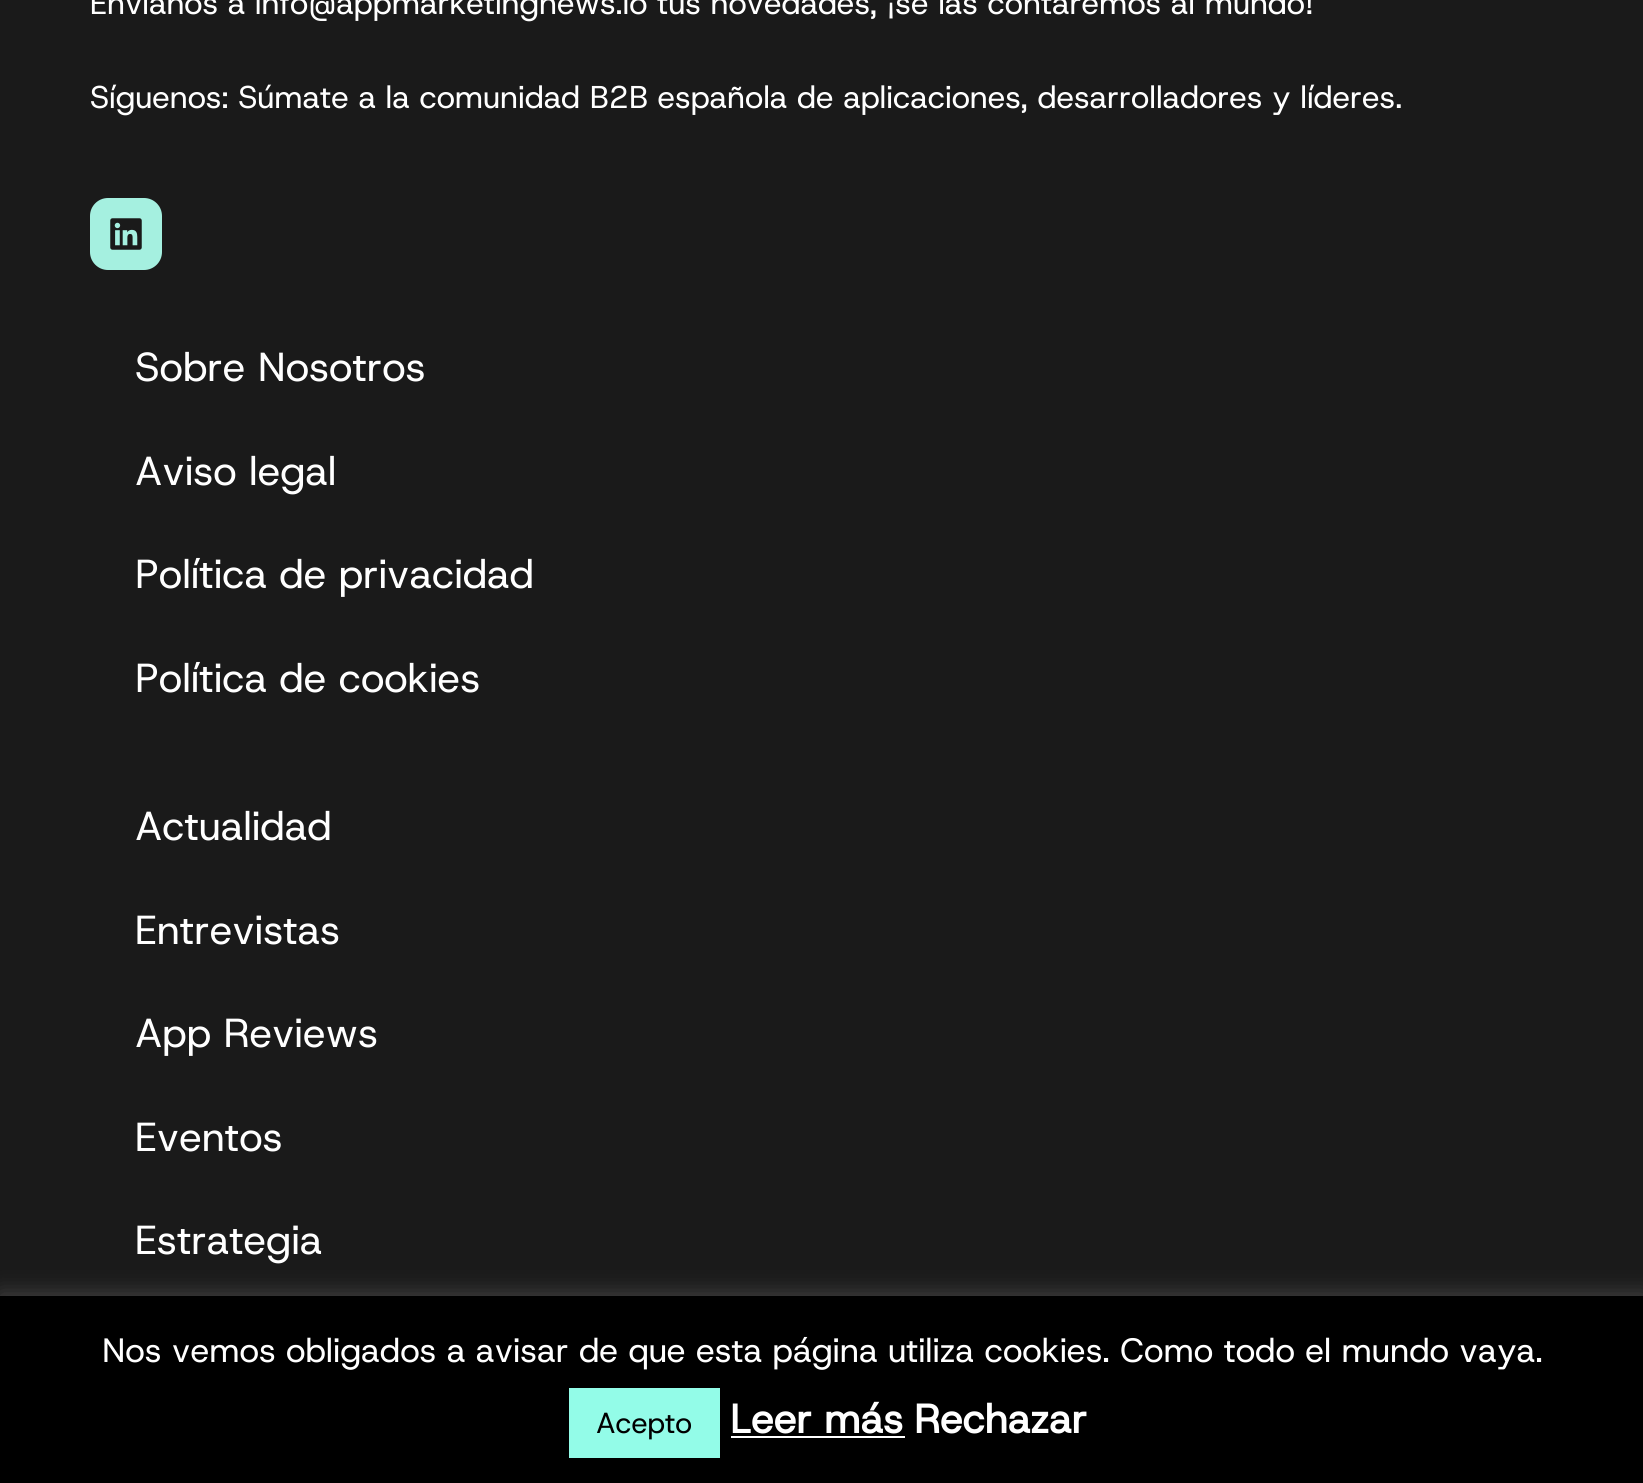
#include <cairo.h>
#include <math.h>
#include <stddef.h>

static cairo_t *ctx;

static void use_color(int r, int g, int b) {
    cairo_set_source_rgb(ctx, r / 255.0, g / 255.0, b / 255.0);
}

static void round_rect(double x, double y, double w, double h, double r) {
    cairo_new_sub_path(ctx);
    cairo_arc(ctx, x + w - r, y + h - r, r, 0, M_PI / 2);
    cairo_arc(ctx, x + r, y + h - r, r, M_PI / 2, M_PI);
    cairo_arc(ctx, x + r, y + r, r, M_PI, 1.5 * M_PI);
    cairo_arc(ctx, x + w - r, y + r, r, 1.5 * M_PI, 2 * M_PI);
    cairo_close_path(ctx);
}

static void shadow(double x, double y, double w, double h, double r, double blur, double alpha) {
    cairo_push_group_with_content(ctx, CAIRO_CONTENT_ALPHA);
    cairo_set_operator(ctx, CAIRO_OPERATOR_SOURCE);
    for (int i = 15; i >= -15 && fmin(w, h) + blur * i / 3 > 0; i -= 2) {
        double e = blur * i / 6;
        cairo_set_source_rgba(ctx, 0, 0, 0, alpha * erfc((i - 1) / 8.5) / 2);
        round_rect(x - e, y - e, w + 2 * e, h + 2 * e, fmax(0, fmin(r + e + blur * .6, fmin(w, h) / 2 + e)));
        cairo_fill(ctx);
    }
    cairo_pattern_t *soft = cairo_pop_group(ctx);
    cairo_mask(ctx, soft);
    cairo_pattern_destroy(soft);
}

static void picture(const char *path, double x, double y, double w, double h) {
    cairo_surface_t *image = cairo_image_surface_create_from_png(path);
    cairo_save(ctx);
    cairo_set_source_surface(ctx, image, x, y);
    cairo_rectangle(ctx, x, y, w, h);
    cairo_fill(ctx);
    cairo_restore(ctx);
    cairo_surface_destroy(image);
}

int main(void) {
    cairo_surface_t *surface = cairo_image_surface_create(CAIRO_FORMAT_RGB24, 1643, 1483);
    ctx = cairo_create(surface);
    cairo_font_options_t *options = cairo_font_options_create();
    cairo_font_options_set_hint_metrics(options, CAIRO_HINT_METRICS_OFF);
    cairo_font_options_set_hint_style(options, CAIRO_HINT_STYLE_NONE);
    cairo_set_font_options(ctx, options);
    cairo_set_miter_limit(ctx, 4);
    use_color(26, 26, 26);
    cairo_paint(ctx);
    cairo_select_font_face(ctx, "Host Grotesk", CAIRO_FONT_SLANT_NORMAL, CAIRO_FONT_WEIGHT_NORMAL);
    cairo_set_font_size(ctx, 31.5);
    use_color(255, 255, 255);
    cairo_move_to(ctx, 90, 14);
    cairo_show_text(ctx, "Envíanos a info@appmarketingnews.io tus novedades, ¡se las contaremos al mundo!");
    cairo_move_to(ctx, 90, 108);
    cairo_show_text(ctx, "Síguenos: Súmate a la comunidad B2B española de aplicaciones, desarrolladores y líderes.");
    use_color(165, 240, 224);
    round_rect(90, 198, 72, 72, 18);
    cairo_fill(ctx);
    picture("img1.png", 110, 218, 32, 32);
    cairo_set_font_size(ctx, 40.5);
    use_color(255, 255, 255);
    cairo_move_to(ctx, 135, 381);
    cairo_show_text(ctx, "Sobre Nosotros");
    cairo_move_to(ctx, 135, 485);
    cairo_show_text(ctx, "Aviso legal");
    cairo_move_to(ctx, 135, 588);
    cairo_show_text(ctx, "Política de privacidad");
    cairo_move_to(ctx, 135, 692);
    cairo_show_text(ctx, "Política de cookies");
    cairo_move_to(ctx, 135, 840);
    cairo_show_text(ctx, "Actualidad");
    cairo_move_to(ctx, 135, 944);
    cairo_show_text(ctx, "Entrevistas");
    cairo_move_to(ctx, 135, 1047);
    cairo_show_text(ctx, "App Reviews");
    cairo_move_to(ctx, 135, 1151);
    cairo_show_text(ctx, "Eventos");
    cairo_move_to(ctx, 135, 1254);
    cairo_show_text(ctx, "Estrategia");
    use_color(172, 171, 171);
    shadow(0, 1294, 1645, 189, 0, 11, 0.3);
    use_color(0, 0, 0);
    cairo_rectangle(ctx, 0, 1296, 1643, 187);
    cairo_fill(ctx);
    cairo_set_font_size(ctx, 33.75);
    use_color(255, 255, 255);
    cairo_move_to(ctx, 102, 1362);
    cairo_show_text(ctx, "Nos vemos obligados a avisar de que esta página utiliza cookies. Como todo el mundo vaya.");
    use_color(147, 252, 232);
    cairo_rectangle(ctx, 569, 1388, 151, 70);
    cairo_fill(ctx);
    cairo_set_font_size(ctx, 29);
    use_color(0, 0, 0);
    cairo_move_to(ctx, 596, 1433);
    cairo_show_text(ctx, "Acepto");
    cairo_select_font_face(ctx, "Host Grotesk", CAIRO_FONT_SLANT_NORMAL, CAIRO_FONT_WEIGHT_BOLD);
    cairo_set_font_size(ctx, 40.5);
    use_color(255, 255, 255);
    cairo_move_to(ctx, 730, 1433);
    cairo_show_text(ctx, "Leer más");
    cairo_rectangle(ctx, 731, 1436, 174, 2);
    cairo_fill(ctx);
    cairo_move_to(ctx, 914, 1433);
    cairo_show_text(ctx, "Rechazar");
    cairo_surface_write_to_png(surface, "result.png");
    cairo_font_options_destroy(options);
    cairo_destroy(ctx);
    cairo_surface_destroy(surface);
    return 0;
}
